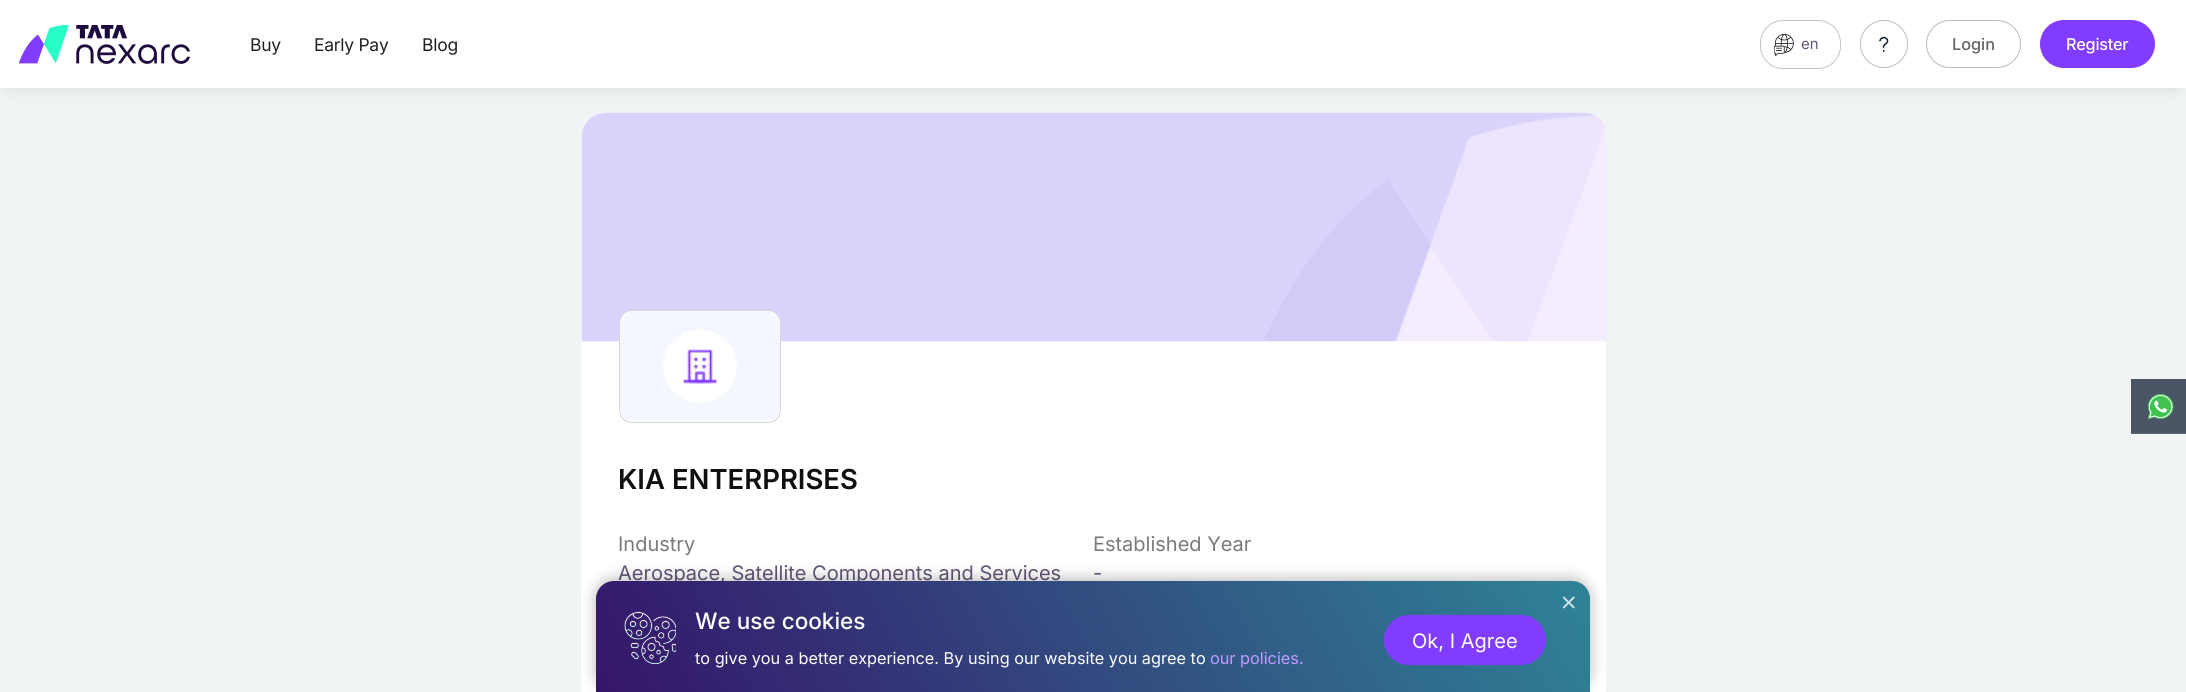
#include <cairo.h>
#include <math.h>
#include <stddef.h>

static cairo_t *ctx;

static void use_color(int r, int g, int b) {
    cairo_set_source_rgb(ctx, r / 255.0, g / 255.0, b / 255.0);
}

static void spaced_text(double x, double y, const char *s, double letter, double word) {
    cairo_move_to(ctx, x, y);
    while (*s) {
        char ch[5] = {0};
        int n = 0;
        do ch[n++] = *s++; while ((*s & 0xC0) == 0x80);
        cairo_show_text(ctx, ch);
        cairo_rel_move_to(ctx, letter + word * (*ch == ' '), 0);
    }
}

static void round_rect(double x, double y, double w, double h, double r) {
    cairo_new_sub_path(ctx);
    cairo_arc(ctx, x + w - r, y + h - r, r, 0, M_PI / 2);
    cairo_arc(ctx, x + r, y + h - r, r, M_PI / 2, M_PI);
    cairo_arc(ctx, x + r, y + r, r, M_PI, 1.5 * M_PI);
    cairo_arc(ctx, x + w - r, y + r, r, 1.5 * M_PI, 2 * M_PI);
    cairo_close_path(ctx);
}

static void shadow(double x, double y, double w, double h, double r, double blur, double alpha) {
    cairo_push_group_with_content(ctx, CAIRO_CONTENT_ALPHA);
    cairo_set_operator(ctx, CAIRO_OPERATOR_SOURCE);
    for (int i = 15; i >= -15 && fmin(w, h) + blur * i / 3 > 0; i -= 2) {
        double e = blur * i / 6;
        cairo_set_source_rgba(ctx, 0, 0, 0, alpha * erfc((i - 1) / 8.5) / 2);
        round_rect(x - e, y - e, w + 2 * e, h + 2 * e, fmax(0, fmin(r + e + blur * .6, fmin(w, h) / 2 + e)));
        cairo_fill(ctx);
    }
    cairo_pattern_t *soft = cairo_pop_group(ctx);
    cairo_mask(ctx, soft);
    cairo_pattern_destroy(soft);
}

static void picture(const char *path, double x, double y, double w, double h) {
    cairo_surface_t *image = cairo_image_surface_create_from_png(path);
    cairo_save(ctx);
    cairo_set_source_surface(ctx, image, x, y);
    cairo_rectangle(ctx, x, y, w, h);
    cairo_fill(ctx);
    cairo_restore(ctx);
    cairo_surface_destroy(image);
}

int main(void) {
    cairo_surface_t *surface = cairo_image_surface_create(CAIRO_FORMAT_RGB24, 2186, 692);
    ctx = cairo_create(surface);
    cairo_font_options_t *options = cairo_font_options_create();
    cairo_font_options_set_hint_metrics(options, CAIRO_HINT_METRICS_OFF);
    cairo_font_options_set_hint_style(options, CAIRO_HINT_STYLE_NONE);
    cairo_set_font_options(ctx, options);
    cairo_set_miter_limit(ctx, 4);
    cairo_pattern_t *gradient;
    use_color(241, 244, 245);
    cairo_paint(ctx);
    use_color(255, 255, 255);
    round_rect(581, 113, 1025, 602, 23);
    cairo_fill(ctx);
    picture("img4.png", 581, 112, 1025, 230);
    use_color(0, 0, 0);
    shadow(11, 18, 2164, 65, 0, 9.5, 0.2);
    use_color(255, 255, 255);
    cairo_rectangle(ctx, 0, 0, 2186, 88);
    cairo_fill(ctx);
    picture("img1.png", 19, 25, 171, 39);
    cairo_select_font_face(ctx, "Inter", CAIRO_FONT_SLANT_NORMAL, CAIRO_FONT_WEIGHT_NORMAL);
    cairo_set_font_size(ctx, 17.5);
    use_color(33, 33, 35);
    spaced_text(250, 51, "Buy", -0.25, 0);
    spaced_text(314, 51, "Early Pay", -0.25, 0);
    spaced_text(422, 51, "Blog", -0.25, 0);
    round_rect(1760.5, 20.5, 80, 48, 22.5);
    use_color(197, 197, 197);
    cairo_set_line_width(ctx, 1);
    cairo_stroke(ctx);
    picture("img2.png", 1774, 34, 20, 22);
    cairo_set_font_size(ctx, 15);
    use_color(98, 84, 119);
    cairo_move_to(ctx, 1801, 49);
    cairo_show_text(ctx, "en");
    cairo_new_path(ctx);
    cairo_arc(ctx, 1884, 44, 23.5, 0, 2 * M_PI);
    use_color(188, 188, 189);
    cairo_stroke(ctx);
    picture("img3.png", 1878, 36, 11, 16);
    round_rect(1926.5, 20.5, 94, 47, 23.5);
    cairo_stroke(ctx);
    cairo_select_font_face(ctx, "Inter Medium", CAIRO_FONT_SLANT_NORMAL, CAIRO_FONT_WEIGHT_NORMAL);
    cairo_set_font_size(ctx, 16.25);
    use_color(100, 100, 101);
    cairo_move_to(ctx, 1952, 50);
    cairo_show_text(ctx, "Login");
    use_color(130, 60, 255);
    round_rect(2040.5, 20.5, 114, 47, 23.5);
    cairo_fill_preserve(ctx);
    cairo_stroke(ctx);
    use_color(255, 255, 255);
    spaced_text(2066, 50, "Register", -0.25, 0);
    round_rect(619.5, 310.5, 161, 112, 12.5);
    cairo_fill_preserve(ctx);
    use_color(214, 214, 214);
    cairo_stroke(ctx);
    picture("img5.png", 620, 311, 160, 110);
    cairo_select_font_face(ctx, "Inter SemiBold", CAIRO_FONT_SLANT_NORMAL, CAIRO_FONT_WEIGHT_NORMAL);
    cairo_set_font_size(ctx, 27.5);
    use_color(16, 16, 16);
    cairo_move_to(ctx, 618, 489);
    cairo_show_text(ctx, "KIA ENTERPRISES");
    cairo_select_font_face(ctx, "Inter", CAIRO_FONT_SLANT_NORMAL, CAIRO_FONT_WEIGHT_NORMAL);
    cairo_set_font_size(ctx, 20);
    use_color(122, 122, 123);
    cairo_move_to(ctx, 618, 551);
    cairo_show_text(ctx, "Industry");
    use_color(98, 84, 119);
    cairo_move_to(ctx, 618, 580);
    cairo_show_text(ctx, "Aerospace, Satellite Components and Services");
    use_color(122, 122, 123);
    cairo_move_to(ctx, 1093, 551);
    cairo_show_text(ctx, "Established Year");
    use_color(98, 84, 119);
    cairo_move_to(ctx, 1093, 580);
    cairo_show_text(ctx, "-");
    use_color(74, 86, 102);
    cairo_rectangle(ctx, 2131, 379, 55, 54);
    cairo_fill(ctx);
    use_color(95, 106, 120);
    cairo_rectangle(ctx, 2131, 433, 55, 1);
    cairo_fill(ctx);
    picture("img6.png", 2148, 394, 26, 26);
    use_color(0, 0, 0);
    shadow(596, 579, 994, 111, 18, 7.5, 0.28);
    gradient = cairo_pattern_create_linear(1490, 408, 696, 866);
    cairo_pattern_add_color_stop_rgba(gradient, 0, 0.184, 0.514, 0.588, 1);
    cairo_pattern_add_color_stop_rgba(gradient, 1, 0.208, 0.082, 0.416, 1);
    cairo_set_source(ctx, gradient);
    cairo_pattern_destroy(gradient);
    cairo_new_path(ctx);
    cairo_move_to(ctx, 614, 581);
    cairo_line_to(ctx, 1572, 581);
    cairo_curve_to(ctx, 1582, 581, 1590, 589, 1590, 599);
    cairo_line_to(ctx, 1590, 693);
    cairo_line_to(ctx, 596, 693);
    cairo_line_to(ctx, 596, 599);
    cairo_curve_to(ctx, 596, 589, 604, 581, 614, 581);
    cairo_close_path(ctx);
    cairo_fill(ctx);
    picture("img7.png", 1562, 596, 13, 13);
    picture("img8.png", 624, 611, 52, 53);
    cairo_select_font_face(ctx, "Inter Medium", CAIRO_FONT_SLANT_NORMAL, CAIRO_FONT_WEIGHT_NORMAL);
    cairo_set_font_size(ctx, 22.5);
    use_color(255, 255, 255);
    cairo_move_to(ctx, 695, 629);
    cairo_show_text(ctx, "We use cookies");
    cairo_select_font_face(ctx, "Inter", CAIRO_FONT_SLANT_NORMAL, CAIRO_FONT_WEIGHT_NORMAL);
    cairo_set_font_size(ctx, 16.25);
    cairo_move_to(ctx, 695, 664);
    cairo_show_text(ctx, "to give you a better experience. By using our website you agree to");
    use_color(192, 155, 255);
    cairo_move_to(ctx, 1210, 664);
    cairo_show_text(ctx, "our policies.");
    use_color(130, 60, 255);
    round_rect(1384.5, 615.5, 161, 49, 24.5);
    cairo_fill_preserve(ctx);
    cairo_stroke(ctx);
    cairo_set_font_size(ctx, 20);
    use_color(255, 255, 255);
    cairo_move_to(ctx, 1412, 648);
    cairo_show_text(ctx, "Ok, I Agree");
    cairo_surface_write_to_png(surface, "result.png");
    cairo_font_options_destroy(options);
    cairo_destroy(ctx);
    cairo_surface_destroy(surface);
    return 0;
}
